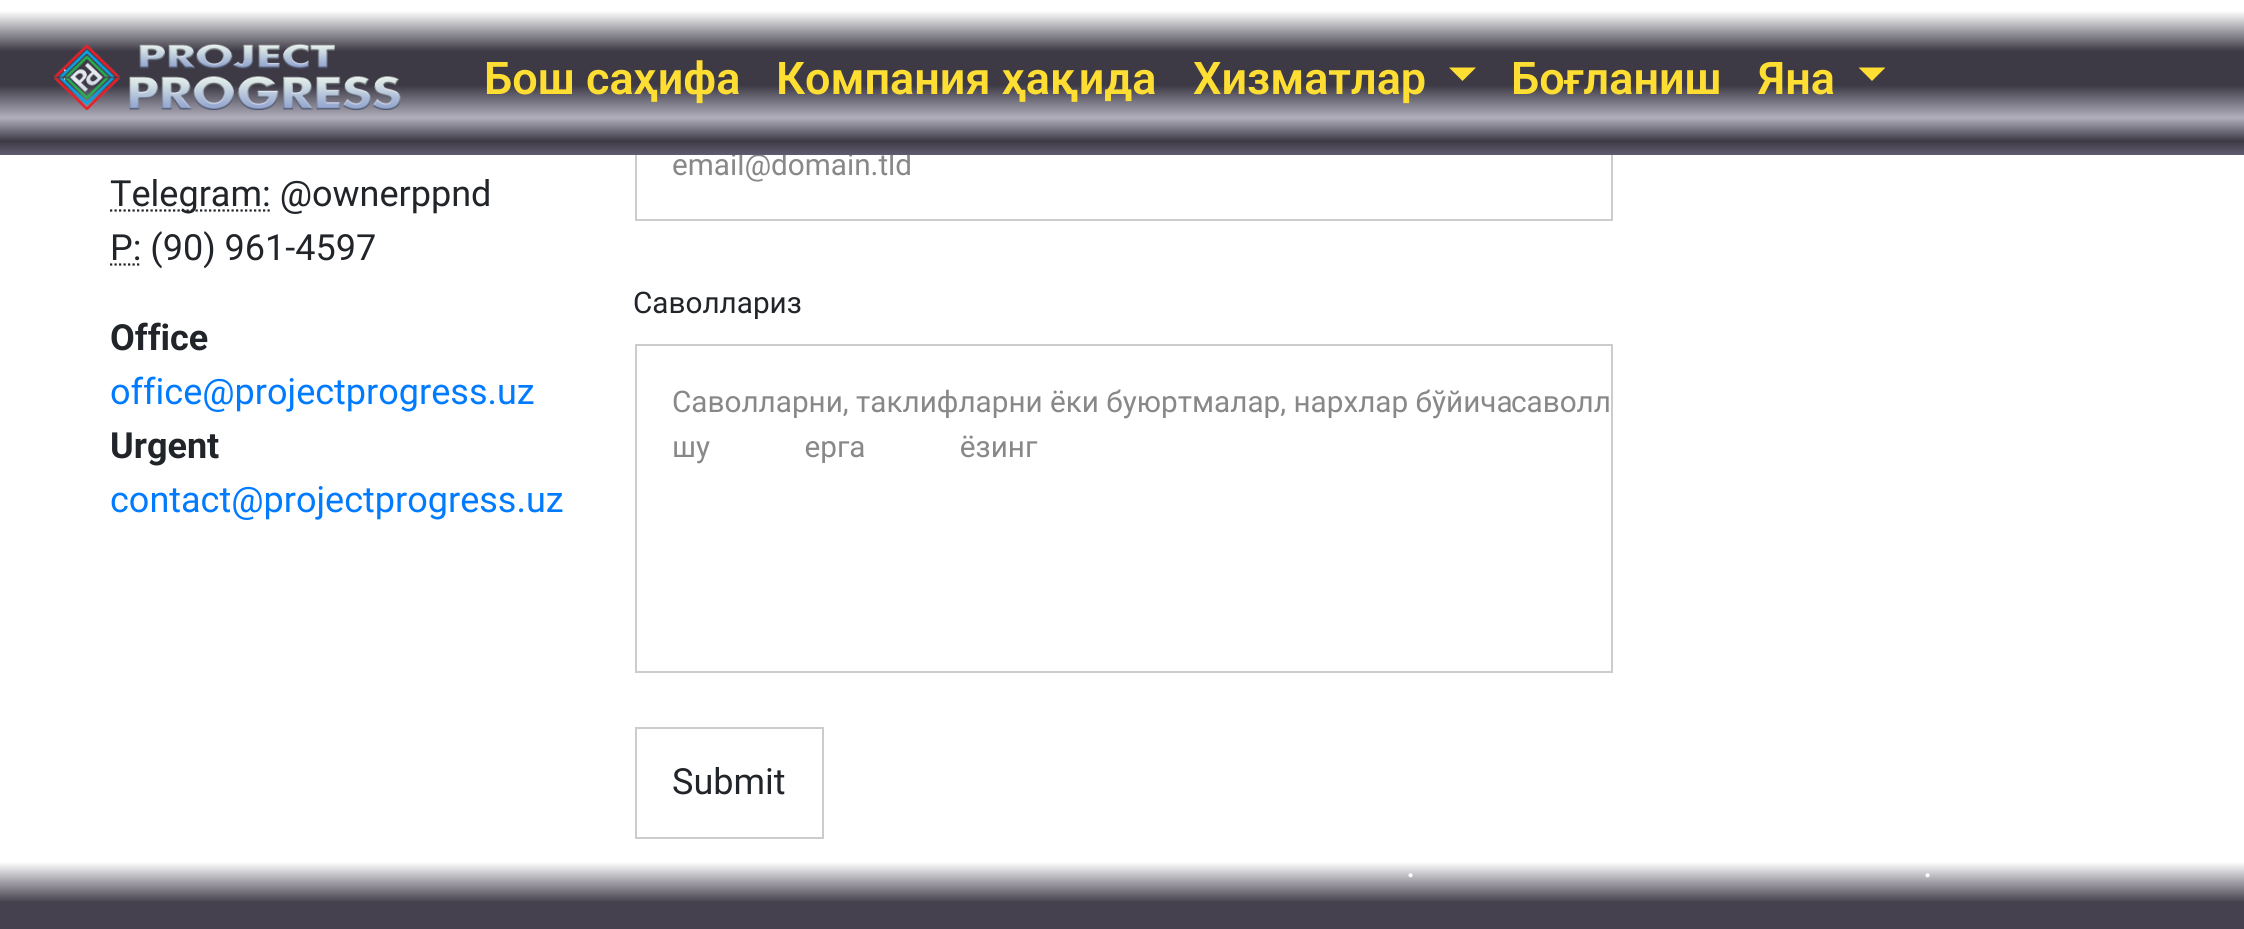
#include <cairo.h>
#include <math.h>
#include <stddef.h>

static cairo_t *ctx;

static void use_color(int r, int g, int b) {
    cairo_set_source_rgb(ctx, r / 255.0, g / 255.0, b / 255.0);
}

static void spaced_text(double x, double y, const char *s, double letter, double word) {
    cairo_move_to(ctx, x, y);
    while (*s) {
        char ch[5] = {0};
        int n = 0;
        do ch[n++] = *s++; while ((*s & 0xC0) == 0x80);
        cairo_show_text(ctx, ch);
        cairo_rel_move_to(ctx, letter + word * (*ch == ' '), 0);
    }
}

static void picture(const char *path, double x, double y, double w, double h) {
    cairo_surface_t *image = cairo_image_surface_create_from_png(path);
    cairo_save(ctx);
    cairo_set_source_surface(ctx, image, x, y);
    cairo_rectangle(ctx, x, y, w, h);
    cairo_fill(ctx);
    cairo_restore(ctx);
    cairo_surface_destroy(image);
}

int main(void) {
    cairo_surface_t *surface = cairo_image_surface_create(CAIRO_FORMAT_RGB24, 2244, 929);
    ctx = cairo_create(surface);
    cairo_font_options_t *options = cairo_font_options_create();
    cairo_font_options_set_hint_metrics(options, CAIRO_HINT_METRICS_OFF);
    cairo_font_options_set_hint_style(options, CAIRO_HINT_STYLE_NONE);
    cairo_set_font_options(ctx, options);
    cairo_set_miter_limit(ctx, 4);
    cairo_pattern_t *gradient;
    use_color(255, 255, 255);
    cairo_paint(ctx);
    gradient = cairo_pattern_create_linear(1123, -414, 1123, 929);
    cairo_pattern_add_color_stop_rgba(gradient, 0.07, 0.271, 0.255, 0.306, 1);
    cairo_pattern_add_color_stop_rgba(gradient, 0.1, 1, 1, 1, 1);
    cairo_pattern_add_color_stop_rgba(gradient, 0.95, 1, 1, 1, 1);
    cairo_pattern_add_color_stop_rgba(gradient, 0.98, 0.271, 0.255, 0.306, 1);
    cairo_set_source(ctx, gradient);
    cairo_pattern_destroy(gradient);
    cairo_rectangle(ctx, 0, 862, 2244, 67);
    cairo_fill(ctx);
    cairo_rectangle(ctx, 636, 109, 976, 111);
    use_color(204, 204, 204);
    cairo_stroke(ctx);
    cairo_select_font_face(ctx, "Roboto", CAIRO_FONT_SLANT_NORMAL, CAIRO_FONT_WEIGHT_NORMAL);
    cairo_set_font_size(ctx, 29.7);
    use_color(136, 136, 136);
    cairo_move_to(ctx, 672, 175);
    cairo_show_text(ctx, "email@domain.tld");
    gradient = cairo_pattern_create_linear(1123, 0, 1123, 155);
    cairo_pattern_add_color_stop_rgba(gradient, 0.07, 1, 1, 1, 1);
    cairo_pattern_add_color_stop_rgba(gradient, 0.33, 0.239, 0.227, 0.275, 1);
    cairo_pattern_add_color_stop_rgba(gradient, 0.55, 0.239, 0.227, 0.275, 1);
    cairo_pattern_add_color_stop_rgba(gradient, 0.76, 0.698, 0.686, 0.741, 1);
    cairo_pattern_add_color_stop_rgba(gradient, 0.91, 0.239, 0.227, 0.275, 1);
    cairo_pattern_add_color_stop_rgba(gradient, 1, 0.376, 0.361, 0.435, 1);
    cairo_pattern_add_color_stop_rgba(gradient, 1, 0.169, 0.145, 0.145, 1);
    cairo_set_source(ctx, gradient);
    cairo_pattern_destroy(gradient);
    cairo_rectangle(ctx, 0, 11, 2244, 144);
    cairo_fill(ctx);
    picture("img1.png", 53, 43, 348, 68);
    cairo_select_font_face(ctx, "Roboto SemiBold", CAIRO_FONT_SLANT_NORMAL, CAIRO_FONT_WEIGHT_NORMAL);
    cairo_set_font_size(ctx, 45);
    use_color(255, 222, 51);
    cairo_move_to(ctx, 484, 94);
    cairo_show_text(ctx, "Бош саҳифа");
    cairo_move_to(ctx, 776, 94);
    cairo_show_text(ctx, "Компания ҳақида");
    cairo_move_to(ctx, 1193, 94);
    cairo_show_text(ctx, "Хизматлар");
    cairo_new_path(ctx);
    cairo_move_to(ctx, 1449, 67.5);
    cairo_line_to(ctx, 1476, 67.5);
    cairo_line_to(ctx, 1462.5, 81);
    cairo_close_path(ctx);
    cairo_fill(ctx);
    cairo_move_to(ctx, 1511, 94);
    cairo_show_text(ctx, "Боғланиш");
    cairo_move_to(ctx, 1758, 94);
    cairo_show_text(ctx, "Яна");
    cairo_new_path(ctx);
    cairo_move_to(ctx, 1858.5, 67.5);
    cairo_line_to(ctx, 1885.5, 67.5);
    cairo_line_to(ctx, 1872, 81);
    cairo_close_path(ctx);
    cairo_fill(ctx);
    cairo_new_path(ctx);
    cairo_move_to(ctx, 110, 210.5);
    cairo_line_to(ctx, 271, 210.5);
    use_color(33, 37, 41);
    cairo_set_line_width(ctx, 2.2);
    cairo_set_dash(ctx, (double[]){2.25, 2.25}, 2, 0);
    cairo_stroke(ctx);
    cairo_select_font_face(ctx, "Roboto", CAIRO_FONT_SLANT_NORMAL, CAIRO_FONT_WEIGHT_NORMAL);
    cairo_set_font_size(ctx, 36);
    cairo_move_to(ctx, 110, 206);
    cairo_show_text(ctx, "Telegram: @ownerppnd");
    cairo_new_path(ctx);
    cairo_move_to(ctx, 110, 264.5);
    cairo_line_to(ctx, 141.5, 264.5);
    cairo_stroke(ctx);
    cairo_move_to(ctx, 110, 260);
    cairo_show_text(ctx, "P: (90) 961-4597");
    cairo_select_font_face(ctx, "Roboto", CAIRO_FONT_SLANT_NORMAL, CAIRO_FONT_WEIGHT_BOLD);
    cairo_move_to(ctx, 110, 350);
    cairo_show_text(ctx, "Office");
    cairo_select_font_face(ctx, "Roboto", CAIRO_FONT_SLANT_NORMAL, CAIRO_FONT_WEIGHT_NORMAL);
    use_color(0, 123, 255);
    cairo_move_to(ctx, 110, 404);
    cairo_show_text(ctx, "office@projectprogress.uz");
    cairo_select_font_face(ctx, "Roboto", CAIRO_FONT_SLANT_NORMAL, CAIRO_FONT_WEIGHT_BOLD);
    use_color(33, 37, 41);
    cairo_move_to(ctx, 110, 458);
    cairo_show_text(ctx, "Urgent");
    cairo_select_font_face(ctx, "Roboto", CAIRO_FONT_SLANT_NORMAL, CAIRO_FONT_WEIGHT_NORMAL);
    use_color(0, 123, 255);
    cairo_move_to(ctx, 110, 512);
    cairo_show_text(ctx, "contact@projectprogress.uz");
    cairo_set_font_size(ctx, 29.7);
    use_color(33, 37, 41);
    cairo_move_to(ctx, 633, 313);
    cairo_show_text(ctx, "Саволлариз");
    cairo_rectangle(ctx, 636, 345, 976, 327);
    use_color(204, 204, 204);
    cairo_set_line_width(ctx, 2);
    cairo_set_dash(ctx, NULL, 0, 0);
    cairo_stroke(ctx);
    use_color(136, 136, 136);
    cairo_move_to(ctx, 672, 412);
    cairo_show_text(ctx, "Саволларни, таклифларни ёки буюртмалар, нархлар бўйича");
    cairo_move_to(ctx, 1511, 412);
    cairo_show_text(ctx, "саволл");
    spaced_text(672, 457, "шу ерга ёзинг", 0, 87);
    cairo_rectangle(ctx, 636, 728, 187, 110);
    use_color(204, 204, 204);
    cairo_stroke(ctx);
    cairo_set_font_size(ctx, 36);
    use_color(33, 37, 41);
    cairo_move_to(ctx, 672, 794);
    cairo_show_text(ctx, "Submit");
    use_color(255, 255, 255);
    cairo_move_to(ctx, 1406, 877);
    cairo_show_text(ctx, ".");
    cairo_move_to(ctx, 1923, 877);
    cairo_show_text(ctx, ".");
    cairo_surface_write_to_png(surface, "result.png");
    cairo_font_options_destroy(options);
    cairo_destroy(ctx);
    cairo_surface_destroy(surface);
    return 0;
}
